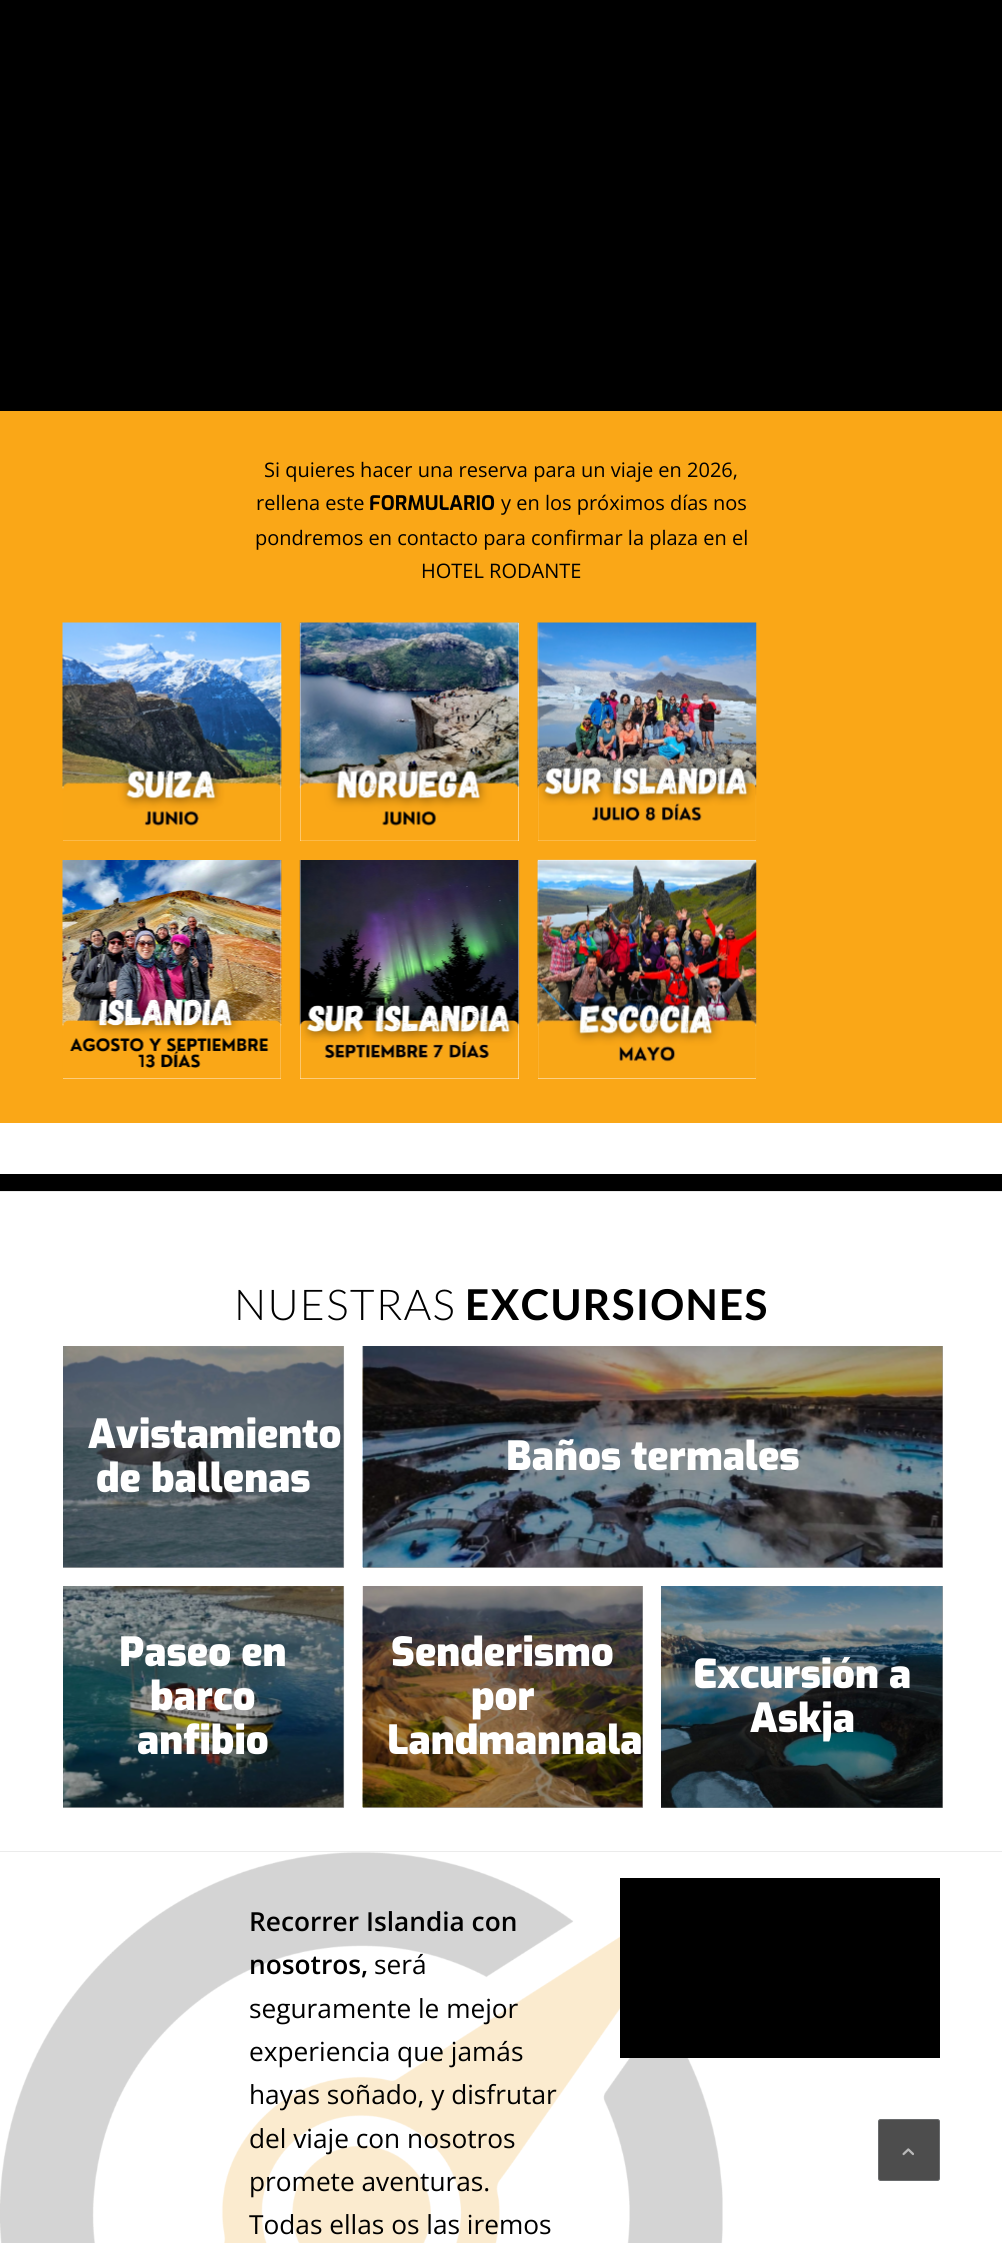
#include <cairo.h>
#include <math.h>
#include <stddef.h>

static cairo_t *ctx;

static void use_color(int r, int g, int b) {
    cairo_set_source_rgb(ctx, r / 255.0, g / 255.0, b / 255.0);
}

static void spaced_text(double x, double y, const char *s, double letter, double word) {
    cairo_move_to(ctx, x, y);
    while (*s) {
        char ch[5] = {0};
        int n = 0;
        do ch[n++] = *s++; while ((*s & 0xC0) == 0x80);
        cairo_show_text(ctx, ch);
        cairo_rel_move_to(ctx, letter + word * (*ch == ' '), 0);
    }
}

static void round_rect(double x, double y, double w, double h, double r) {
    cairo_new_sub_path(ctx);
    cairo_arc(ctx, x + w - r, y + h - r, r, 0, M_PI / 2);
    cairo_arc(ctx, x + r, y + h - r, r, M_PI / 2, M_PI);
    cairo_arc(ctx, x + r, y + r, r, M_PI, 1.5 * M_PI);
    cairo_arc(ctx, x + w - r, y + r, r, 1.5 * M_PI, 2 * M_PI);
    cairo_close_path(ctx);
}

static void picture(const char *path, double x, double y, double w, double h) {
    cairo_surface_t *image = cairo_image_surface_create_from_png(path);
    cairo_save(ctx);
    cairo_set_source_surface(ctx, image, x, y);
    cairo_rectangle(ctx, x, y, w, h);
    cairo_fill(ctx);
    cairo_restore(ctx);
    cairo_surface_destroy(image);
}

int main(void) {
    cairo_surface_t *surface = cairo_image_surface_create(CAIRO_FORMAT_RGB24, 1002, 2243);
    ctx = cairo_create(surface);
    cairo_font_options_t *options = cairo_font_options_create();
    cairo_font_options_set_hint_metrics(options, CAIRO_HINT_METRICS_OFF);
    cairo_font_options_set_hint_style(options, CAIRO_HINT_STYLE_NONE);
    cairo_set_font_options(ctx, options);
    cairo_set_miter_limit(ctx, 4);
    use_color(255, 255, 255);
    cairo_paint(ctx);
    use_color(0, 0, 0);
    cairo_rectangle(ctx, 0, 0, 1002, 411);
    cairo_fill(ctx);
    use_color(250, 167, 23);
    cairo_rectangle(ctx, 0, 411, 1002, 712);
    cairo_fill(ctx);
    cairo_select_font_face(ctx, "Open Sans", CAIRO_FONT_SLANT_NORMAL, CAIRO_FONT_WEIGHT_NORMAL);
    cairo_set_font_size(ctx, 20);
    use_color(0, 0, 0);
    cairo_move_to(ctx, 264, 477);
    cairo_show_text(ctx, "Si quieres hacer una reserva para un viaje en 2026,");
    cairo_move_to(ctx, 256, 510);
    cairo_show_text(ctx, "rellena este");
    cairo_select_font_face(ctx, "Exo", CAIRO_FONT_SLANT_NORMAL, CAIRO_FONT_WEIGHT_BOLD);
    cairo_move_to(ctx, 369, 510);
    cairo_show_text(ctx, "FORMULARIO");
    cairo_select_font_face(ctx, "Open Sans", CAIRO_FONT_SLANT_NORMAL, CAIRO_FONT_WEIGHT_NORMAL);
    cairo_move_to(ctx, 501, 510);
    cairo_show_text(ctx, "y en los próximos días nos");
    cairo_move_to(ctx, 255, 545);
    cairo_show_text(ctx, "pondremos en contacto para confirmar la plaza en el");
    cairo_move_to(ctx, 421, 578);
    cairo_show_text(ctx, "HOTEL RODANTE");
    use_color(255, 255, 255);
    cairo_rectangle(ctx, 63, 623, 218, 218);
    cairo_fill(ctx);
    picture("img1.png", 62, 622, 220, 219);
    cairo_rectangle(ctx, 300, 623, 219, 218);
    cairo_fill(ctx);
    picture("img2.png", 299, 622, 221, 219);
    cairo_rectangle(ctx, 538, 623, 218, 218);
    cairo_fill(ctx);
    picture("img3.png", 537, 622, 220, 219);
    cairo_rectangle(ctx, 63, 860, 218, 219);
    cairo_fill(ctx);
    picture("img4.png", 62, 860, 220, 219);
    cairo_rectangle(ctx, 300, 860, 219, 219);
    cairo_fill(ctx);
    picture("img5.png", 299, 860, 221, 219);
    cairo_rectangle(ctx, 538, 860, 218, 219);
    cairo_fill(ctx);
    picture("img6.png", 537, 859, 220, 220);
    use_color(0, 0, 0);
    cairo_rectangle(ctx, 0, 1174, 1002, 17);
    cairo_fill(ctx);
    use_color(166, 166, 166);
    cairo_rectangle(ctx, 661, 1586, 282, 222);
    cairo_fill(ctx);
    cairo_rectangle(ctx, 363, 1586, 280, 222);
    cairo_fill(ctx);
    cairo_rectangle(ctx, 63, 1586, 281, 222);
    cairo_fill(ctx);
    cairo_rectangle(ctx, 363, 1346, 580, 222);
    cairo_fill(ctx);
    cairo_rectangle(ctx, 63, 1346, 281, 222);
    cairo_fill(ctx);
    use_color(235, 235, 235);
    cairo_rectangle(ctx, 0, 1191, 1002, 1);
    cairo_fill(ctx);
    cairo_select_font_face(ctx, "Lato Light", CAIRO_FONT_SLANT_NORMAL, CAIRO_FONT_WEIGHT_NORMAL);
    cairo_set_font_size(ctx, 42.5);
    use_color(0, 0, 0);
    spaced_text(234, 1320, "NUESTRAS", 1.25, 0);
    cairo_select_font_face(ctx, "Lato", CAIRO_FONT_SLANT_NORMAL, CAIRO_FONT_WEIGHT_BOLD);
    spaced_text(465, 1320, "EXCURSIONES", 1.25, 0);
    picture("img7.png", 63, 1346, 282, 222);
    cairo_select_font_face(ctx, "Exo Black", CAIRO_FONT_SLANT_NORMAL, CAIRO_FONT_WEIGHT_NORMAL);
    cairo_set_font_size(ctx, 40);
    use_color(255, 255, 255);
    cairo_move_to(ctx, 88, 1448);
    cairo_show_text(ctx, "Avistamiento");
    cairo_move_to(ctx, 96, 1492);
    cairo_show_text(ctx, "de ballenas");
    picture("img8.png", 362, 1346, 581, 222);
    cairo_move_to(ctx, 506, 1470);
    cairo_show_text(ctx, "Baños termales");
    picture("img9.png", 63, 1586, 282, 222);
    cairo_move_to(ctx, 119, 1666);
    cairo_show_text(ctx, "Paseo en");
    cairo_move_to(ctx, 150, 1710);
    cairo_show_text(ctx, "barco");
    cairo_move_to(ctx, 137, 1754);
    cairo_show_text(ctx, "anfibio");
    picture("img10.png", 362, 1586, 281, 222);
    cairo_move_to(ctx, 391, 1666);
    cairo_show_text(ctx, "Senderismo");
    cairo_move_to(ctx, 471, 1710);
    cairo_show_text(ctx, "por");
    cairo_move_to(ctx, 387, 1754);
    cairo_show_text(ctx, "Landmannala");
    picture("img11.png", 661, 1586, 282, 222);
    cairo_move_to(ctx, 693, 1688);
    cairo_show_text(ctx, "Excursión a");
    cairo_move_to(ctx, 750, 1732);
    cairo_show_text(ctx, "Askja");
    picture("img12.png", 0, 1852, 723, 391);
    use_color(235, 235, 235);
    cairo_rectangle(ctx, 0, 1851, 1002, 1);
    cairo_fill(ctx);
    cairo_select_font_face(ctx, "Open Sans SemiBold", CAIRO_FONT_SLANT_NORMAL, CAIRO_FONT_WEIGHT_NORMAL);
    cairo_set_font_size(ctx, 26.25);
    use_color(0, 0, 0);
    cairo_move_to(ctx, 249, 1931);
    cairo_show_text(ctx, "Recorrer Islandia con");
    cairo_move_to(ctx, 249, 1974);
    cairo_show_text(ctx, "nosotros,");
    cairo_select_font_face(ctx, "Open Sans", CAIRO_FONT_SLANT_NORMAL, CAIRO_FONT_WEIGHT_NORMAL);
    cairo_move_to(ctx, 374, 1974);
    cairo_show_text(ctx, "será");
    cairo_move_to(ctx, 249, 2018);
    cairo_show_text(ctx, "seguramente le mejor");
    cairo_move_to(ctx, 249, 2061);
    cairo_show_text(ctx, "experiencia que jamás");
    cairo_move_to(ctx, 249, 2104);
    cairo_show_text(ctx, "hayas soñado, y disfrutar");
    cairo_move_to(ctx, 249, 2148);
    cairo_show_text(ctx, "del viaje con nosotros");
    cairo_move_to(ctx, 249, 2191);
    cairo_show_text(ctx, "promete aventuras.");
    cairo_move_to(ctx, 249, 2234);
    cairo_show_text(ctx, "Todas ellas os las iremos");
    cairo_rectangle(ctx, 620, 1878, 320, 180);
    cairo_fill(ctx);
    use_color(77, 77, 77);
    round_rect(878.5, 2119.5, 61, 61, 2);
    cairo_fill_preserve(ctx);
    use_color(105, 107, 109);
    cairo_set_line_width(ctx, 1);
    cairo_stroke(ctx);
    picture("img13.png", 902, 2148, 12, 8);
    cairo_surface_write_to_png(surface, "result.png");
    cairo_font_options_destroy(options);
    cairo_destroy(ctx);
    cairo_surface_destroy(surface);
    return 0;
}
